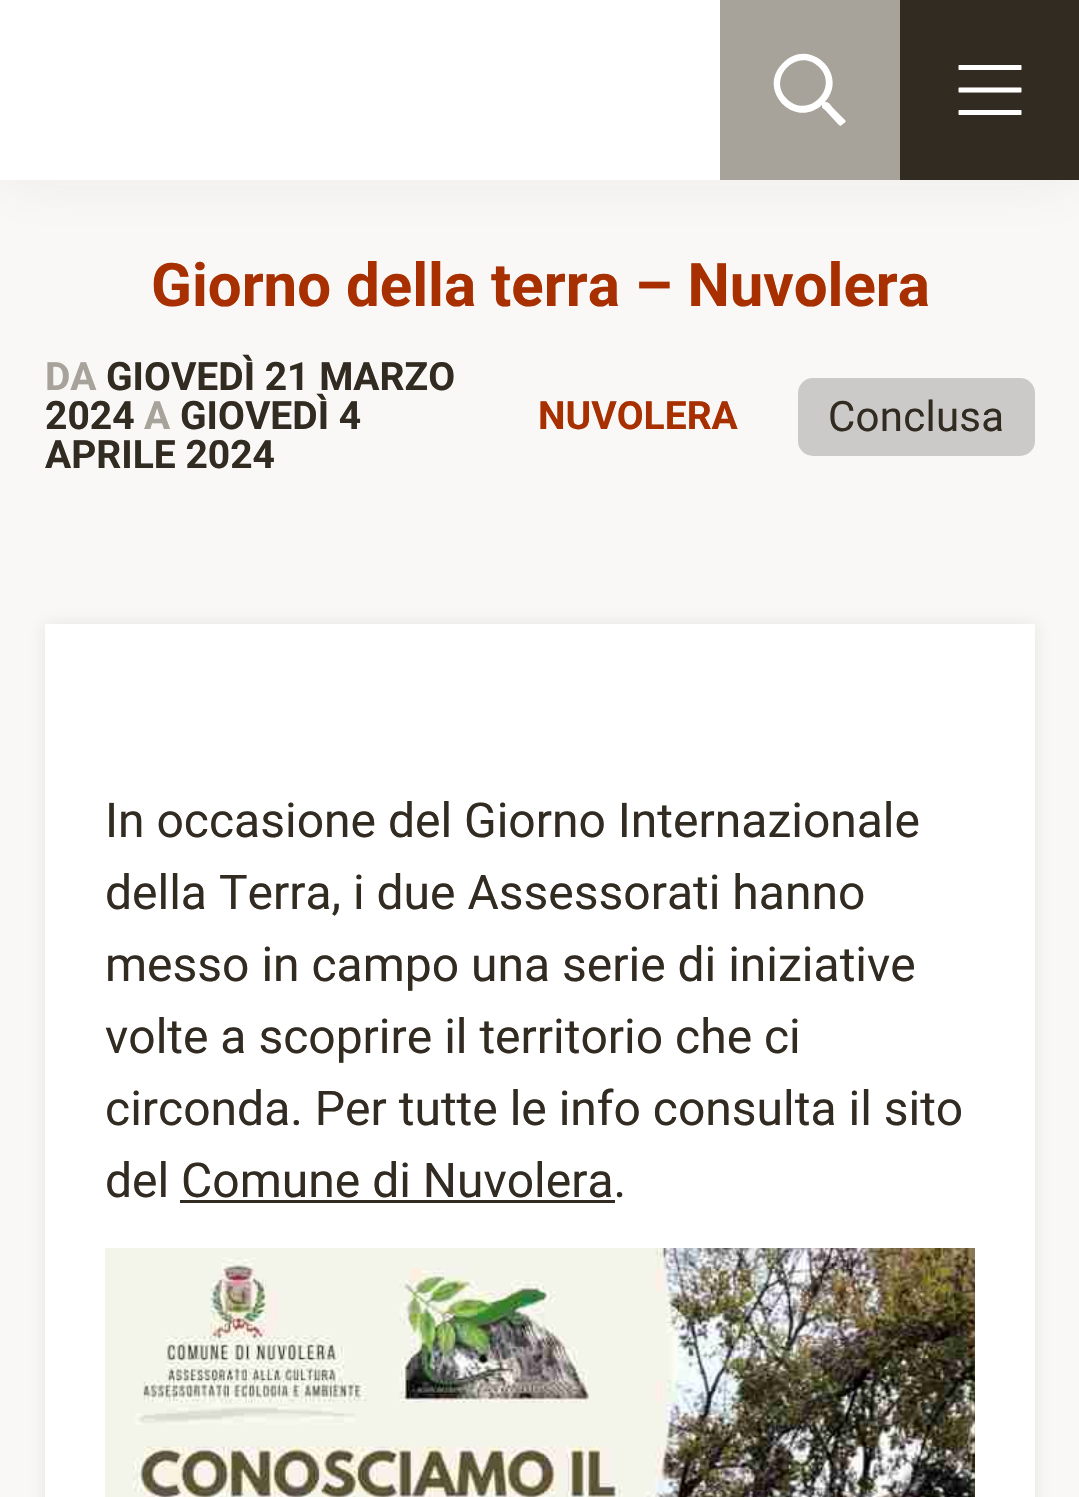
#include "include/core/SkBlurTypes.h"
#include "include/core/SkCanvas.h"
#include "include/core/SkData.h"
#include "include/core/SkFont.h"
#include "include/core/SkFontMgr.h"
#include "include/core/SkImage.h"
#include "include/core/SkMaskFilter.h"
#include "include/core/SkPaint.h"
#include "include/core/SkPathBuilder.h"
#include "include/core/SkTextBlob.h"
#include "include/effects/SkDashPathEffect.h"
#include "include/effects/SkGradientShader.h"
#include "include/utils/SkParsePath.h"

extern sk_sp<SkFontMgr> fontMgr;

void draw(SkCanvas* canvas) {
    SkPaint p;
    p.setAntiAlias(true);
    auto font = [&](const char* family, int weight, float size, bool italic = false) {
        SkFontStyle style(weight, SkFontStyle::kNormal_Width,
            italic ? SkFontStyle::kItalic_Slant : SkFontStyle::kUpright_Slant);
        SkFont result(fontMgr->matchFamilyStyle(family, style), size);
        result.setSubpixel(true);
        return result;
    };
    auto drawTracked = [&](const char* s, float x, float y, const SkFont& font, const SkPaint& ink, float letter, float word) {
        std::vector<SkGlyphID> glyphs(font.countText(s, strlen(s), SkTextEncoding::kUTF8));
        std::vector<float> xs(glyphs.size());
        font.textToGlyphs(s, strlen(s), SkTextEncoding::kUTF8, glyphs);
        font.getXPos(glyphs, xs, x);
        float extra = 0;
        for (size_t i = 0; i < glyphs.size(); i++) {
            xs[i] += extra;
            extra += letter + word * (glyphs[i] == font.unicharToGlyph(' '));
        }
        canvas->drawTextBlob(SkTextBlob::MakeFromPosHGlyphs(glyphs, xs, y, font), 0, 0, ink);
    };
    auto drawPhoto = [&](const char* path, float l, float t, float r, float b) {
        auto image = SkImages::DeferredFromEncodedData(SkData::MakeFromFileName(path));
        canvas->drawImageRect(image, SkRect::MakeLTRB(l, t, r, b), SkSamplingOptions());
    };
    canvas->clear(0xFFF9F8F6);
    p.setColor(0x0D322B22);
    p.setMaskFilter(SkMaskFilter::MakeBlur(kNormal_SkBlurStyle, 30));
    canvas->drawRect(SkRect::MakeLTRB(0, 6, 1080, 186), p);
    p.setMaskFilter(nullptr);
    p.setColor(0xFFFFFFFF);
    canvas->drawRect(SkRect::MakeLTRB(0, 0, 720, 180), p);
    p.setColor(0xFFA7A29A);
    canvas->drawRect(SkRect::MakeLTRB(720, 0, 900, 180), p);
    p.setColor(0xFFFFFFFF);
    canvas->drawPath(SkPathBuilder().moveTo(845, 120).cubicTo(847, 122, 844, 123, 843, 124).cubicTo(840, 127, 840, 126, 837, 123).lineTo(826, 111).cubicTo(823, 108, 822, 109, 822, 105).cubicTo(794, 130, 756, 89, 783, 63).cubicTo(809, 36, 850, 74, 825, 102).cubicTo(830, 102, 830, 105, 834, 109).close().moveTo(787, 99).cubicTo(808, 120, 840, 88, 819, 67).cubicTo(798, 46, 766, 78, 787, 99).close().detach(), p);
    p.setColor(0xFF322B22);
    canvas->drawRect(SkRect::MakeLTRB(900, 0, 1079, 180), p);
    drawPhoto("media/1.png", 958, 65, 1022, 115);
    auto font1 = font("Roboto", 700, 60);
    p.setColor(0xFFA82F00);
    canvas->drawString("Giorno della terra – Nuvolera", 151, 306, font1, p);
    auto font2 = font("Roboto", 700, 39);
    p.setColor(0xFFA7A29A);
    canvas->drawString("DA", 45, 390, font2, p);
    p.setColor(0xFF322B22);
    canvas->drawString("GIOVEDÌ 21 MARZO", 106, 390, font2, p);
    canvas->drawString("2024", 45, 429, font2, p);
    p.setColor(0xFFA7A29A);
    canvas->drawString("A", 144, 429, font2, p);
    p.setColor(0xFF322B22);
    canvas->drawString("GIOVEDÌ 4", 180, 429, font2, p);
    canvas->drawString("APRILE 2024", 45, 468, font2, p);
    p.setColor(0xFFA82F00);
    canvas->drawString("NUVOLERA", 538, 429, font2, p);
    p.setColor(0xFFCCCAC8);
    canvas->drawRoundRect(SkRect::MakeLTRB(798, 378, 1035, 456), 15, 15, p);
    auto font3 = font("Roboto", 400, 42);
    p.setColor(0xFF322B22);
    drawTracked("Conclusa", 828, 431, font3, p, 0.25f, 0);
    p.setColor(0x40A7A29A);
    p.setMaskFilter(SkMaskFilter::MakeBlur(kNormal_SkBlurStyle, 7.5f));
    canvas->drawRect(SkRect::MakeLTRB(45, 624, 1035, 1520), p);
    p.setMaskFilter(nullptr);
    p.setColor(0xFFFFFFFF);
    canvas->drawRect(SkRect::MakeLTRB(45, 624, 1035, 1497), p);
    auto font4 = font("Roboto", 400, 48);
    p.setColor(0xFF322B22);
    {
        const struct { const char* s; float x, y; } items[] = {
            {"In occasione del Giorno Internazionale", 105, 837},
            {"della Terra, i due Assessorati hanno", 105, 909},
            {"messo in campo una serie di iniziative", 105, 981},
            {"volte a scoprire il territorio che ci", 105, 1053},
            {"circonda. Per tutte le info consulta il sito", 105, 1125},
            {"del Comune di Nuvolera.", 105, 1197},
        };
        for (auto [s, x, y] : items) {
            canvas->drawString(s, x, y, font4, p);
        }
    }
    canvas->drawRect(SkRect::MakeLTRB(180, 1200, 615, 1203), p);
    drawPhoto("media/2.png", 105, 1248, 975, 1497);
}
